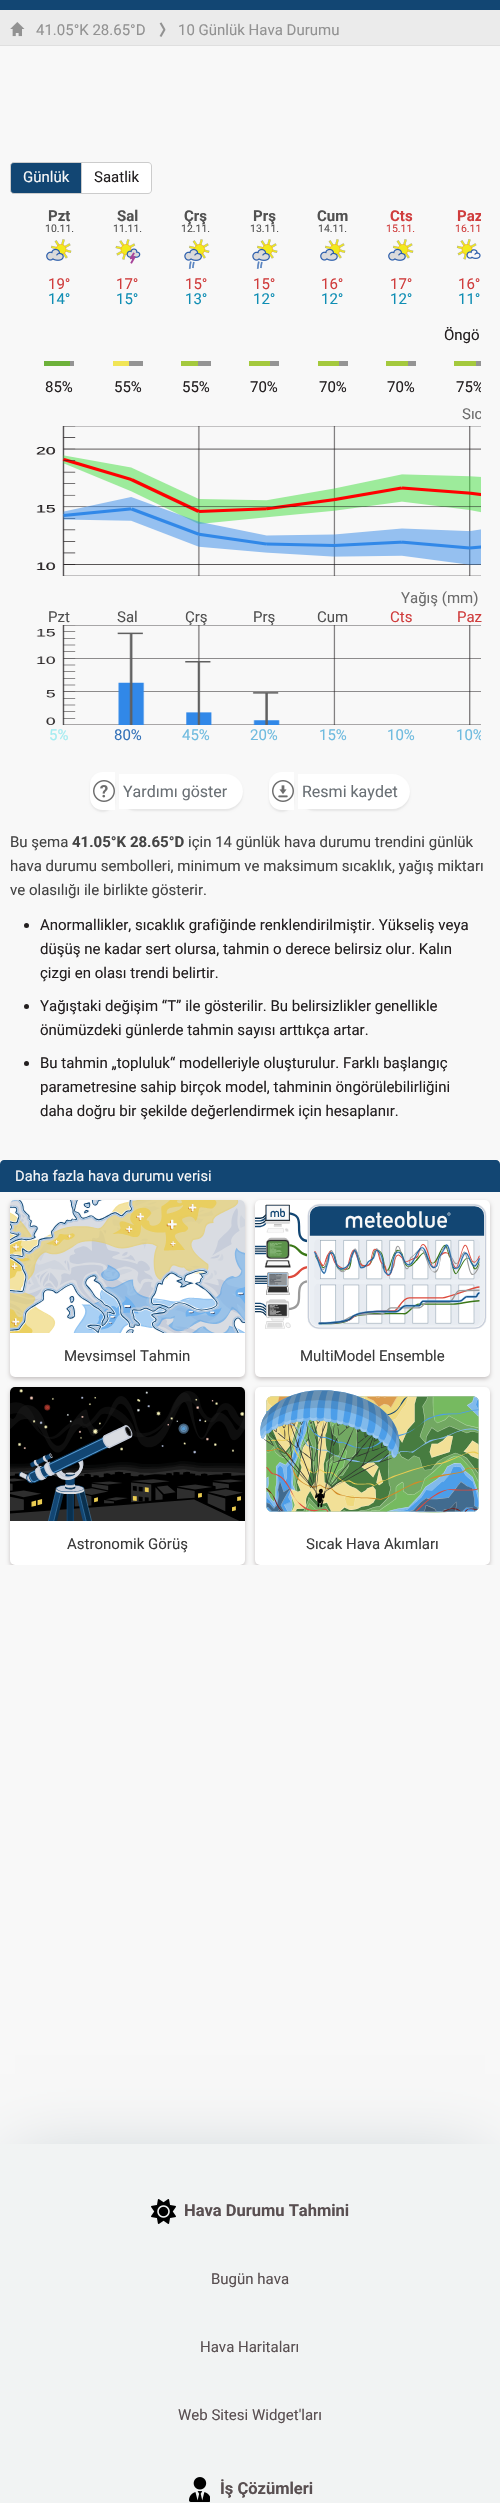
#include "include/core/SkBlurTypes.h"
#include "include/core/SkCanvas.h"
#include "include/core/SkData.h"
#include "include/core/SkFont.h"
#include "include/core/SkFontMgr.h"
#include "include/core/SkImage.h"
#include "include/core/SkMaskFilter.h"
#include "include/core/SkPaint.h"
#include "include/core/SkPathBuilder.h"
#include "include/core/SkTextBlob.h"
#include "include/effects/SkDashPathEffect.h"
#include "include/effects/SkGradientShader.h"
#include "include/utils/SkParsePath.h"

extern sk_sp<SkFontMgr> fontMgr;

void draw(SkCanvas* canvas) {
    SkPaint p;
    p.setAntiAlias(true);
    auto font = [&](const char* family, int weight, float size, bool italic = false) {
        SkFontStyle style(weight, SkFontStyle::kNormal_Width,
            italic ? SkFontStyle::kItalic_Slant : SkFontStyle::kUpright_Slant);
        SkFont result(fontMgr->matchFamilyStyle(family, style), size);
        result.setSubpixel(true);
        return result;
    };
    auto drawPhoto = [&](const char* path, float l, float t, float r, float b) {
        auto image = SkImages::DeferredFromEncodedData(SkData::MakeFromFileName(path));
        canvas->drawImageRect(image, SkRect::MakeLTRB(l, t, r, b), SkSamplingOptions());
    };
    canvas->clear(0xFFF8F8F8);
    {
        const struct { float l, t, r, b; SkColor color; } items[] = {
            {0, 0, 500, 10, 0xFF124673},
            {0, 10, 500, 45, 0xFFEBEBEB},
            {0, 45, 500, 46, 0xFFDFDFDF},
        };
        for (auto [l, t, r, b, color] : items) {
            p.setColor(color);
            canvas->drawRect(SkRect::MakeLTRB(l, t, r, b), p);
        }
    }
    drawPhoto("media/1.png", 10, 22, 25, 37);
    auto font1 = font("Roboto", 400, 15);
    p.setColor(0xFF929292);
    canvas->drawString("41.05°K 28.65°D", 36, 35, font1, p);
    drawPhoto("media/2.png", 159, 22, 166, 37);
    canvas->drawString("10 Günlük Hava Durumu", 178, 35, font1, p);
    p.setColor(0xFF124673);
    canvas->drawPath(SkPathBuilder().moveTo(14, 162.5f).lineTo(81.5f, 162.5f).lineTo(81.5f, 193.5f).lineTo(14, 193.5f).cubicTo(12, 193.5f, 10.5f, 192, 10.5f, 190).lineTo(10.5f, 166).cubicTo(10.5f, 164, 12, 162.5f, 14, 162.5f).close().detach(), p);
    p.setStyle(SkPaint::kStroke_Style);
    p.setStrokeWidth(1);
    p.setColor(0xFFCCCCCC);
    canvas->drawPath(SkPathBuilder().moveTo(14, 162.5f).lineTo(81.5f, 162.5f).lineTo(81.5f, 193.5f).lineTo(14, 193.5f).cubicTo(12, 193.5f, 10.5f, 192, 10.5f, 190).lineTo(10.5f, 166).cubicTo(10.5f, 164, 12, 162.5f, 14, 162.5f).close().detach(), p);
    p.setStyle(SkPaint::kFill_Style);
    p.setColor(0xFFF8F8F8);
    canvas->drawString("Günlük", 23, 182, font1, p);
    p.setColor(0xFFFFFFFF);
    canvas->drawPath(SkPathBuilder().moveTo(82, 162).lineTo(148, 162).cubicTo(150, 162, 152, 164, 152, 166).lineTo(152, 190).cubicTo(152, 192, 150, 194, 148, 194).lineTo(82, 194).close().detach(), p);
    p.setColor(0xFFCCCCCC);
    canvas->drawPath(SkPathBuilder(SkPathFillType::kEvenOdd).moveTo(82, 162).lineTo(148, 162).cubicTo(150, 162, 152, 164, 152, 166).lineTo(152, 190).cubicTo(152, 192, 150, 194, 148, 194).lineTo(82, 194).close().moveTo(82, 163).lineTo(148, 163).cubicTo(150, 163, 151, 164, 151, 166).lineTo(151, 190).cubicTo(151, 192, 150, 193, 148, 193).lineTo(82, 193).close().detach(), p);
    p.setColor(0xFF231F20);
    canvas->drawString("Saatlik", 94, 182, font1, p);
    auto font2 = font("Roboto", 700, 15);
    p.setColor(0xFF515151);
    {
        const struct { const char* s; float x, y; } items[] = {
            {"Pzt", 48, 221},
            {"Sal", 117, 221},
            {"Çrş", 184, 221},
            {"Prş", 253, 221},
            {"Cum", 317, 221},
        };
        for (auto [s, x, y] : items) {
            canvas->drawString(s, x, y, font2, p);
        }
    }
    p.setColor(0xFFD03D3D);
    canvas->drawString("Cts", 390, 221, font2, p);
    canvas->save();
    canvas->clipRect(SkRect::MakeLTRB(25, 209, 481, 743));
    canvas->drawString("Paz", 457, 221, font2, p);
    canvas->restore();
    auto font3 = font("Roboto", 400, 10.5f);
    p.setColor(0xFF515151);
    {
        const struct { const char* s; float x, y; } items[] = {
            {"10.11.", 45, 232},
            {"11.11.", 113, 232},
            {"12.11.", 181, 232},
            {"13.11.", 250, 232},
            {"14.11.", 318, 232},
        };
        for (auto [s, x, y] : items) {
            canvas->drawString(s, x, y, font3, p);
        }
    }
    p.setColor(0xFFD03D3D);
    canvas->drawString("15.11.", 386, 232, font3, p);
    canvas->drawString("16.11", 455, 232, font3, p);
    drawPhoto("media/3.png", 46, 239, 72, 261);
    drawPhoto("media/4.png", 115, 239, 141, 264);
    drawPhoto("media/5.png", 184, 239, 210, 269);
    drawPhoto("media/5.png", 252, 239, 278, 269);
    drawPhoto("media/3.png", 320, 239, 346, 261);
    drawPhoto("media/3.png", 388, 239, 414, 261);
    drawPhoto("media/6.png", 456, 239, 481, 260);
    {
        const struct { const char* s; float x, y; } items[] = {
            {"19°", 48, 289},
            {"17°", 116, 289},
            {"15°", 185, 289},
            {"15°", 253, 289},
            {"16°", 321, 289},
            {"17°", 390, 289},
            {"16°", 458, 289},
        };
        for (auto [s, x, y] : items) {
            canvas->drawString(s, x, y, font1, p);
        }
    }
    p.setColor(0xFF0F8EB4);
    {
        const struct { const char* s; float x, y; } items[] = {
            {"14°", 48, 304},
            {"15°", 116, 304},
            {"13°", 185, 304},
            {"12°", 253, 304},
            {"12°", 321, 304},
            {"12°", 390, 304},
            {"11°", 458, 304},
        };
        for (auto [s, x, y] : items) {
            canvas->drawString(s, x, y, font1, p);
        }
    }
    p.setColor(0xFF231F20);
    canvas->drawString("Öngö", 444, 340, font1, p);
    {
        const struct { float l, t, r, b; SkColor color; } items[] = {
            {44, 361, 70, 366, 0xFF6DB13A},
            {70, 361, 74, 366, 0xFF949494},
            {113, 361, 129, 366, 0xFFF1E556},
            {129, 361, 143, 366, 0xFF949494},
            {181, 361, 198, 366, 0xFFA4C93D},
            {198, 361, 211, 366, 0xFF949494},
            {249, 361, 270, 366, 0xFFA4C93D},
            {270, 361, 279, 366, 0xFF949494},
            {318, 361, 339, 366, 0xFFA4C93D},
            {339, 361, 348, 366, 0xFF949494},
            {386, 361, 408, 366, 0xFFA4C93D},
            {408, 361, 416, 366, 0xFF949494},
            {454, 361, 476, 366, 0xFFA4C93D},
            {476, 361, 481, 366, 0xFF949494},
        };
        for (auto [l, t, r, b, color] : items) {
            p.setColor(color);
            canvas->drawRect(SkRect::MakeLTRB(l, t, r, b), p);
        }
    }
    p.setColor(0xFF231F20);
    {
        const struct { const char* s; float x, y; } items[] = {
            {"85%", 45, 392},
            {"55%", 114, 392},
            {"55%", 182, 392},
            {"70%", 250, 392},
            {"70%", 319, 392},
            {"70%", 387, 392},
        };
        for (auto [s, x, y] : items) {
            canvas->drawString(s, x, y, font1, p);
        }
    }
    canvas->save();
    canvas->clipRect(SkRect::MakeLTRB(25, 209, 481, 743));
    canvas->drawString("75%", 456, 392, font1, p);
    p.setColor(0xFF6C6C6C);
    canvas->drawString("Sıc", 462, 419, font1, p);
    canvas->restore();
    drawPhoto("media/7.png", 36, 426, 481, 576);
    canvas->drawString("Yağış (mm)", 401, 603, font1, p);
    p.setColor(0xFF515151);
    {
        const struct { const char* s; float x, y; } items[] = {
            {"Pzt", 48, 622},
            {"Sal", 117, 622},
            {"Çrş", 185, 622},
            {"Prş", 253, 622},
            {"Cum", 317, 622},
        };
        for (auto [s, x, y] : items) {
            canvas->drawString(s, x, y, font1, p);
        }
    }
    p.setColor(0xFFD03D3D);
    canvas->drawString("Cts", 390, 622, font1, p);
    canvas->drawString("Paz", 457, 622, font1, p);
    drawPhoto("media/8.png", 36, 625, 481, 725);
    p.setColor(0xFFA5ECF1);
    canvas->drawString("5%", 49, 740, font1, p);
    p.setColor(0xFF3472B9);
    canvas->drawString("80%", 114, 740, font1, p);
    p.setColor(0xFF6FBBDF);
    {
        const struct { const char* s; float x, y; } items[] = {
            {"45%", 182, 740},
            {"20%", 250, 740},
            {"15%", 319, 740},
            {"10%", 387, 740},
        };
        for (auto [s, x, y] : items) {
            canvas->drawString(s, x, y, font1, p);
        }
    }
    canvas->save();
    canvas->clipRect(SkRect::MakeLTRB(25, 209, 481, 743));
    canvas->drawString("10%", 456, 740, font1, p);
    canvas->restore();
    p.setColor(0xFFE6E6E6);
    p.setMaskFilter(SkMaskFilter::MakeBlur(kNormal_SkBlurStyle, 1));
    canvas->drawRoundRect(SkRect::MakeLTRB(90, 774, 115, 812), 12.5f, 12.5f, p);
    p.setMaskFilter(nullptr);
    p.setColor(0xFFFFFFFF);
    canvas->drawPath(SkPathBuilder().moveTo(102.5f, 772).lineTo(115, 772).lineTo(115, 810).lineTo(102.5f, 810).cubicTo(95.5f, 810, 90, 804.5f, 90, 797.5f).lineTo(90, 784.5f).cubicTo(90, 777.5f, 95.5f, 772, 102.5f, 772).close().detach(), p);
    p.setColor(0xFFE6E6E6);
    p.setMaskFilter(SkMaskFilter::MakeBlur(kNormal_SkBlurStyle, 1));
    canvas->drawRoundRect(SkRect::MakeLTRB(119, 776, 243, 811), 17.5f, 17.5f, p);
    p.setMaskFilter(nullptr);
    p.setColor(0xFFFFFFFF);
    canvas->drawPath(SkPathBuilder().moveTo(119, 774).lineTo(225.5f, 774).cubicTo(235, 774, 243, 782, 243, 791.5f).cubicTo(243, 801, 235, 809, 225.5f, 809).lineTo(119, 809).close().detach(), p);
    drawPhoto("media/9.png", 93, 780, 115, 802);
    auto font4 = font("Roboto", 400, 16);
    p.setColor(0xFF6A7075);
    canvas->drawString("Yardımı göster", 123, 797, font4, p);
    p.setColor(0xFFE6E6E6);
    p.setMaskFilter(SkMaskFilter::MakeBlur(kNormal_SkBlurStyle, 1));
    canvas->drawRoundRect(SkRect::MakeLTRB(269, 774, 294, 812), 12.5f, 12.5f, p);
    p.setMaskFilter(nullptr);
    p.setColor(0xFFFFFFFF);
    canvas->drawPath(SkPathBuilder().moveTo(281.5f, 772).lineTo(294, 772).lineTo(294, 810).lineTo(281.5f, 810).cubicTo(274.5f, 810, 269, 804.5f, 269, 797.5f).lineTo(269, 784.5f).cubicTo(269, 777.5f, 274.5f, 772, 281.5f, 772).close().detach(), p);
    p.setColor(0xFFE6E6E6);
    p.setMaskFilter(SkMaskFilter::MakeBlur(kNormal_SkBlurStyle, 1));
    canvas->drawRoundRect(SkRect::MakeLTRB(298, 776, 410, 811), 17.5f, 17.5f, p);
    p.setMaskFilter(nullptr);
    p.setColor(0xFFFFFFFF);
    canvas->drawPath(SkPathBuilder().moveTo(298, 774).lineTo(392.5f, 774).cubicTo(402, 774, 410, 782, 410, 791.5f).cubicTo(410, 801, 402, 809, 392.5f, 809).lineTo(298, 809).close().detach(), p);
    drawPhoto("media/10.png", 272, 780, 294, 802);
    p.setColor(0xFF6A7075);
    canvas->drawString("Resmi kaydet", 302, 797, font4, p);
    p.setColor(0xFF444444);
    canvas->drawString("Bu şema", 10, 847, font1, p);
    canvas->drawString("41.05°K 28.65°D", 72, 847, font2, p);
    {
        const struct { const char* s; float x, y; } items[] = {
            {"için 14 günlük hava durumu trendini günlük", 188, 847},
            {"hava durumu sembolleri, minimum ve maksimum sıcaklık, yağış miktarı", 10, 871},
            {"ve olasılığı ile birlikte gösterir.", 10, 895},
        };
        for (auto [s, x, y] : items) {
            canvas->drawString(s, x, y, font1, p);
        }
    }
    p.setColor(0xFF231F20);
    canvas->drawCircle(26.5f, 925.5f, 2.5f, p);
    {
        const struct { const char* s; float x, y; } items[] = {
            {"Anormallikler, sıcaklık grafiğinde renklendirilmiştir. Yükseliş veya", 40, 930},
            {"düşüş ne kadar sert olursa, tahmin o derece belirsiz olur. Kalın", 40, 954},
            {"çizgi en olası trendi belirtir.", 40, 978},
        };
        for (auto [s, x, y] : items) {
            canvas->drawString(s, x, y, font1, p);
        }
    }
    canvas->drawCircle(26.5f, 1006.5f, 2.5f, p);
    canvas->drawString("Yağıştaki değişim “T” ile gösterilir. Bu belirsizlikler genellikle", 40, 1011, font1, p);
    canvas->drawString("önümüzdeki günlerde tahmin sayısı arttıkça artar.", 40, 1035, font1, p);
    canvas->drawCircle(26.5f, 1063.5f, 2.5f, p);
    {
        const struct { const char* s; float x, y; } items[] = {
            {"Bu tahmin „topluluk“ modelleriyle oluşturulur. Farklı başlangıç", 40, 1068},
            {"parametresine sahip birçok model, tahminin öngörülebilirliğini", 40, 1092},
            {"daha doğru bir şekilde değerlendirmek için hesaplanır.", 40, 1116},
        };
        for (auto [s, x, y] : items) {
            canvas->drawString(s, x, y, font1, p);
        }
    }
    p.setColor(0xFF124673);
    canvas->drawPath(SkPathBuilder().moveTo(4, 1160).lineTo(496, 1160).cubicTo(498, 1160, 500, 1162, 500, 1164).lineTo(500, 1192).lineTo(0, 1192).lineTo(0, 1164).cubicTo(0, 1162, 2, 1160, 4, 1160).close().detach(), p);
    auto font5 = font("Roboto", 400, 14.7f);
    p.setColor(0xFFF8F8F8);
    canvas->drawString("Daha fazla hava durumu verisi", 15, 1181, font5, p);
    p.setColor(0xFFC5C0C0);
    p.setMaskFilter(SkMaskFilter::MakeBlur(kNormal_SkBlurStyle, 2));
    canvas->drawRoundRect(SkRect::MakeLTRB(10, 1202, 245, 1379), 5, 5, p);
    p.setMaskFilter(nullptr);
    p.setColor(0xFFFFFFFF);
    canvas->drawRoundRect(SkRect::MakeLTRB(10, 1200, 245, 1377), 5, 5, p);
    drawPhoto("media/11.png", 10, 1200, 245, 1333);
    p.setColor(0xFF3A3A3A);
    canvas->drawString("Mevsimsel Tahmin", 64, 1361, font1, p);
    p.setColor(0xFFC5C0C0);
    p.setMaskFilter(SkMaskFilter::MakeBlur(kNormal_SkBlurStyle, 2));
    canvas->drawRoundRect(SkRect::MakeLTRB(255, 1202, 490, 1379), 5, 5, p);
    p.setMaskFilter(nullptr);
    p.setColor(0xFFFFFFFF);
    canvas->drawRoundRect(SkRect::MakeLTRB(255, 1200, 490, 1377), 5, 5, p);
    drawPhoto("media/12.png", 255, 1203, 487, 1330);
    p.setColor(0xFF3A3A3A);
    canvas->drawString("MultiModel Ensemble", 300, 1361, font1, p);
    canvas->save();
    canvas->clipRect(SkRect::MakeLTRB(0, 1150, 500, 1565));
    p.setColor(0xFFC5C0C0);
    p.setMaskFilter(SkMaskFilter::MakeBlur(kNormal_SkBlurStyle, 2));
    canvas->drawRoundRect(SkRect::MakeLTRB(10, 1389, 245, 1567), 5, 5, p);
    p.setMaskFilter(nullptr);
    canvas->restore();
    p.setColor(0xFFFFFFFF);
    canvas->drawRoundRect(SkRect::MakeLTRB(10, 1387, 245, 1565), 5, 5, p);
    drawPhoto("media/13.png", 10, 1387, 245, 1521);
    p.setColor(0xFF3A3A3A);
    canvas->drawString("Astronomik Görüş", 67, 1549, font1, p);
    canvas->save();
    canvas->clipRect(SkRect::MakeLTRB(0, 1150, 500, 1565));
    p.setColor(0xFFC5C0C0);
    p.setMaskFilter(SkMaskFilter::MakeBlur(kNormal_SkBlurStyle, 2));
    canvas->drawRoundRect(SkRect::MakeLTRB(255, 1389, 490, 1567), 5, 5, p);
    p.setMaskFilter(nullptr);
    canvas->restore();
    p.setColor(0xFFFFFFFF);
    canvas->drawRoundRect(SkRect::MakeLTRB(255, 1387, 490, 1565), 5, 5, p);
    drawPhoto("media/14.png", 260, 1390, 479, 1513);
    p.setColor(0xFF3A3A3A);
    canvas->drawString("Sıcak Hava Akımları", 306, 1549, font1, p);
    p.setColor(0xFFC4CDD1);
    p.setMaskFilter(SkMaskFilter::MakeBlur(kNormal_SkBlurStyle, 35));
    canvas->drawRect(SkRect::MakeLTRB(15, 2159, 485, 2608), p);
    p.setMaskFilter(nullptr);
    p.setColor(0xFFF1F3F3);
    canvas->drawRect(SkRect::MakeLTRB(0, 2144, 500, 2503), p);
    drawPhoto("media/15.png", 151, 2199, 176, 2224);
    auto font6 = font("Roboto", 700, 16.5f);
    p.setColor(0xFF594F51);
    canvas->drawString("Hava Durumu Tahmini", 184, 2216, font6, p);
    {
        const struct { const char* s; float x, y; } items[] = {
            {"Bugün hava", 211, 2284},
            {"Hava Haritaları", 200, 2352},
            {"Web Sitesi Widget'ları", 178, 2420},
        };
        for (auto [s, x, y] : items) {
            canvas->drawString(s, x, y, font1, p);
        }
    }
    drawPhoto("media/16.png", 189, 2477, 210, 2502);
    canvas->drawString("İş Çözümleri", 220, 2494, font6, p);
}
